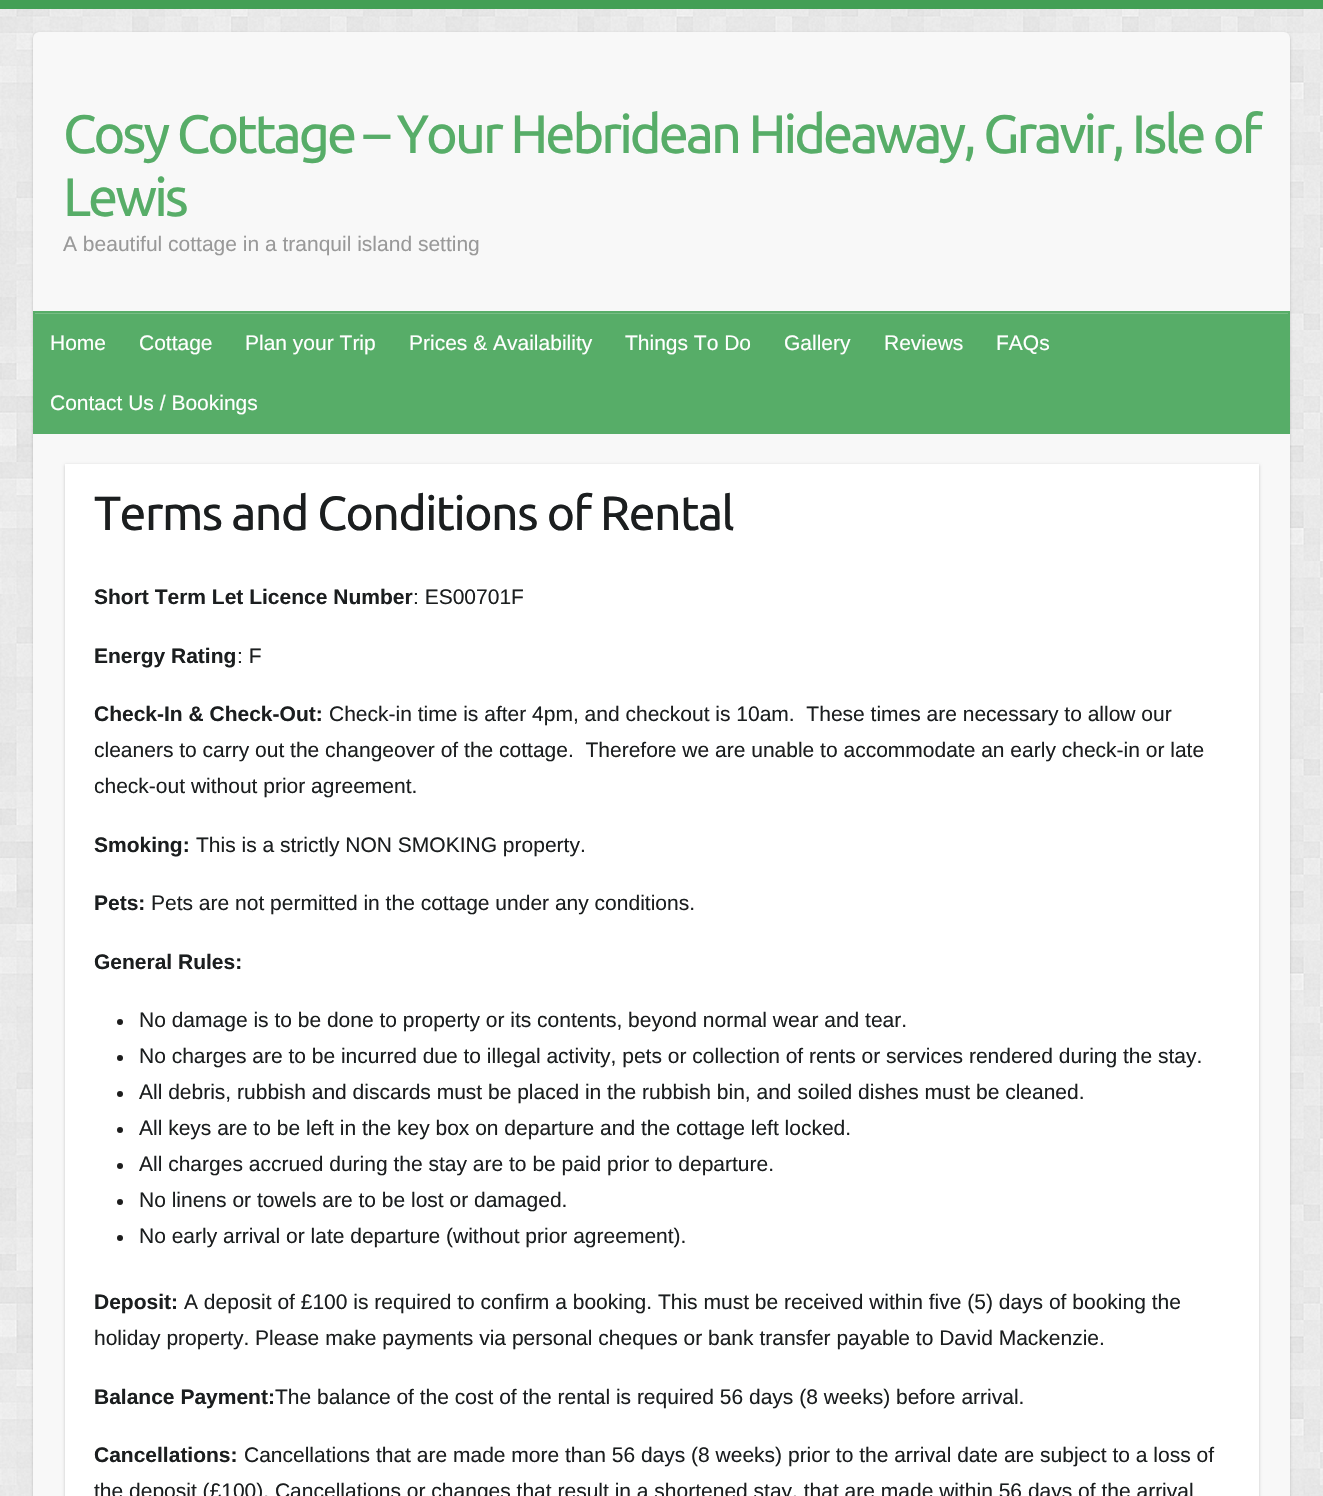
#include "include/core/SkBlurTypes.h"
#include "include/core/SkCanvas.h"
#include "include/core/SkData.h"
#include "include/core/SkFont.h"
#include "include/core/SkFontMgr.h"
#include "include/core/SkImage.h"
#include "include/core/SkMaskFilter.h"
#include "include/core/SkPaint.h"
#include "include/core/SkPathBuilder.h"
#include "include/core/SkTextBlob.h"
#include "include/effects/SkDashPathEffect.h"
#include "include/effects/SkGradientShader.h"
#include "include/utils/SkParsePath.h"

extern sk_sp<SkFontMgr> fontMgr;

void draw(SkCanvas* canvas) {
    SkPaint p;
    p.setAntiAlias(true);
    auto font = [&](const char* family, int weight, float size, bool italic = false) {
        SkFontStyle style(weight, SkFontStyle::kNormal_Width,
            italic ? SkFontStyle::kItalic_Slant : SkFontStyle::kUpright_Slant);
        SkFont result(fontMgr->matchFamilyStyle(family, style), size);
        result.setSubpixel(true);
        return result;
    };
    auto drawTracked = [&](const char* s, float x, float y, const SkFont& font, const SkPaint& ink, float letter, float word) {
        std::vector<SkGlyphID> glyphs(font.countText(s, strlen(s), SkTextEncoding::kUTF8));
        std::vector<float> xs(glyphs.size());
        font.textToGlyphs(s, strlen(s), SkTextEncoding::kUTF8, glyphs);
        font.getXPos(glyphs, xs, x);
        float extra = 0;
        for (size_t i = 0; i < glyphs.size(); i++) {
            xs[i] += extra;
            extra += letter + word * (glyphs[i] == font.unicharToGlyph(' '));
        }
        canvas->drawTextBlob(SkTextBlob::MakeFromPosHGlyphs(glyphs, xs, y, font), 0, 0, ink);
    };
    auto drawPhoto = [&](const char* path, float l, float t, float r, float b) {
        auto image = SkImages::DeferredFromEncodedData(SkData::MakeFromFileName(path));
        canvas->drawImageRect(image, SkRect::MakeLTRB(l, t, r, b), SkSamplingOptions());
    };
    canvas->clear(0xFFFFFFFF);
    drawPhoto("media/1.png", 0, 9, 1323, 1496);
    p.setColor(0xFF439F55);
    canvas->drawRect(SkRect::MakeLTRB(0, 0, 1323, 9), p);
    p.setColor(0x33000000);
    p.setMaskFilter(SkMaskFilter::MakeBlur(kNormal_SkBlurStyle, 1.5f));
    canvas->drawRoundRect(SkRect::MakeLTRB(33, 33, 1290, 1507), 6, 6, p);
    p.setMaskFilter(nullptr);
    p.setColor(0xFFF8F8F8);
    canvas->drawRoundRect(SkRect::MakeLTRB(33, 32, 1290, 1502), 6, 6, p);
    auto font1 = font("Ubuntu", 400, 54);
    p.setColor(0xFF57AD68);
    drawTracked("Cosy Cottage – Your Hebridean Hideaway, Gravir, Isle of", 63, 153, font1, p, -3, 0);
    drawTracked("Lewis", 63, 216, font1, p, -3, 0);
    auto font2 = font("Liberation Sans", 400, 21);
    p.setColor(0xFF999999);
    canvas->drawString("A beautiful cottage in a tranquil island setting", 63, 251, font2, p);
    p.setColor(0xFF57AD68);
    canvas->drawRect(SkRect::MakeLTRB(35, 314, 1288, 432), p);
    p.setColor(0xFF79BD86);
    canvas->drawRect(SkRect::MakeLTRB(35, 313, 1289, 314), p);
    p.setStyle(SkPaint::kStroke_Style);
    p.setStrokeWidth(2);
    p.setColor(0xFF57AD68);
    canvas->drawRect(SkRect::MakeLTRB(34, 312, 1289, 433), p);
    p.setStyle(SkPaint::kFill_Style);
    p.setColor(0xFFFFFFFF);
    {
        const struct { const char* s; float x, y; } items[] = {
            {"Home", 50, 350},
            {"Cottage", 139, 350},
            {"Plan your Trip", 245, 350},
            {"Prices & Availability", 409, 350},
            {"Things To Do", 625, 350},
            {"Gallery", 784, 350},
            {"Reviews", 884, 350},
            {"FAQs", 996, 350},
            {"Contact Us / Bookings", 50, 410},
        };
        for (auto [s, x, y] : items) {
            canvas->drawString(s, x, y, font2, p);
        }
    }
    p.setColor(0x33000000);
    p.setMaskFilter(SkMaskFilter::MakeBlur(kNormal_SkBlurStyle, 1.5f));
    canvas->drawRect(SkRect::MakeLTRB(65, 465, 1259, 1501), p);
    p.setMaskFilter(nullptr);
    p.setColor(0xFFFFFFFF);
    canvas->drawRect(SkRect::MakeLTRB(65, 464, 1259, 1496), p);
    auto font3 = font("Ubuntu", 400, 48);
    p.setColor(0xFF1B1E1F);
    drawTracked("Terms and Conditions of Rental", 94, 530, font3, p, -1.5f, 0);
    auto font4 = font("Liberation Sans", 700, 21);
    canvas->drawString("Short Term Let Licence Number", 94, 604, font4, p);
    canvas->drawString(": ES00701F", 413, 604, font2, p);
    canvas->drawString("Energy Rating", 94, 663, font4, p);
    canvas->drawString(": F", 237, 663, font2, p);
    canvas->drawString("Check-In & Check-Out:", 94, 721, font4, p);
    {
        const struct { const char* s; float x, y; } items[] = {
            {"Check-in time is after 4pm, and checkout is 10am.  These times are necessary to allow our", 329, 721},
            {"cleaners to carry out the changeover of the cottage.  Therefore we are unable to accommodate an early check-in or late", 94, 757},
            {"check-out without prior agreement.", 94, 793},
        };
        for (auto [s, x, y] : items) {
            canvas->drawString(s, x, y, font2, p);
        }
    }
    canvas->drawString("Smoking:", 94, 852, font4, p);
    canvas->drawString("This is a strictly NON SMOKING property.", 196, 852, font2, p);
    canvas->drawString("Pets:", 94, 910, font4, p);
    canvas->drawString("Pets are not permitted in the cottage under any conditions.", 151, 910, font2, p);
    canvas->drawString("General Rules:", 94, 969, font4, p);
    p.setColor(0xFF1D1D1D);
    canvas->drawCircle(120, 1022, 3, p);
    p.setColor(0xFF1B1E1F);
    canvas->drawString("No damage is to be done to property or its contents, beyond normal wear and tear.", 139, 1027, font2, p);
    p.setColor(0xFF1D1D1D);
    canvas->drawCircle(120, 1058, 3, p);
    p.setColor(0xFF1B1E1F);
    canvas->drawString("No charges are to be incurred due to illegal activity, pets or collection of rents or services rendered during the stay.", 139, 1063, font2, p);
    p.setColor(0xFF1D1D1D);
    canvas->drawCircle(120, 1094, 3, p);
    p.setColor(0xFF1B1E1F);
    canvas->drawString("All debris, rubbish and discards must be placed in the rubbish bin, and soiled dishes must be cleaned.", 139, 1099, font2, p);
    p.setColor(0xFF1D1D1D);
    canvas->drawCircle(120, 1130, 3, p);
    p.setColor(0xFF1B1E1F);
    canvas->drawString("All keys are to be left in the key box on departure and the cottage left locked.", 139, 1135, font2, p);
    p.setColor(0xFF1D1D1D);
    canvas->drawCircle(120, 1166, 3, p);
    p.setColor(0xFF1B1E1F);
    canvas->drawString("All charges accrued during the stay are to be paid prior to departure.", 139, 1171, font2, p);
    p.setColor(0xFF1D1D1D);
    canvas->drawCircle(120, 1202, 3, p);
    p.setColor(0xFF1B1E1F);
    canvas->drawString("No linens or towels are to be lost or damaged.", 139, 1207, font2, p);
    p.setColor(0xFF1D1D1D);
    canvas->drawCircle(120, 1238, 3, p);
    p.setColor(0xFF1B1E1F);
    canvas->drawString("No early arrival or late departure (without prior agreement).", 139, 1243, font2, p);
    canvas->drawString("Deposit:", 94, 1309, font4, p);
    canvas->drawString("A deposit of £100 is required to confirm a booking. This must be received within five (5) days of booking the", 184, 1309, font2, p);
    canvas->drawString("holiday property. Please make payments via personal cheques or bank transfer payable to David Mackenzie.", 94, 1345, font2, p);
    canvas->drawString("Balance Payment:", 94, 1404, font4, p);
    canvas->drawString("The balance of the cost of the rental is required 56 days (8 weeks) before arrival.", 275, 1404, font2, p);
    canvas->drawString("Cancellations:", 94, 1462, font4, p);
    canvas->drawString("Cancellations that are made more than 56 days (8 weeks) prior to the arrival date are subject to a loss of", 244, 1462, font2, p);
    canvas->drawString("the deposit (£100). Cancellations or changes that result in a shortened stay, that are made within 56 days of the arrival", 94, 1498, font2, p);
}
